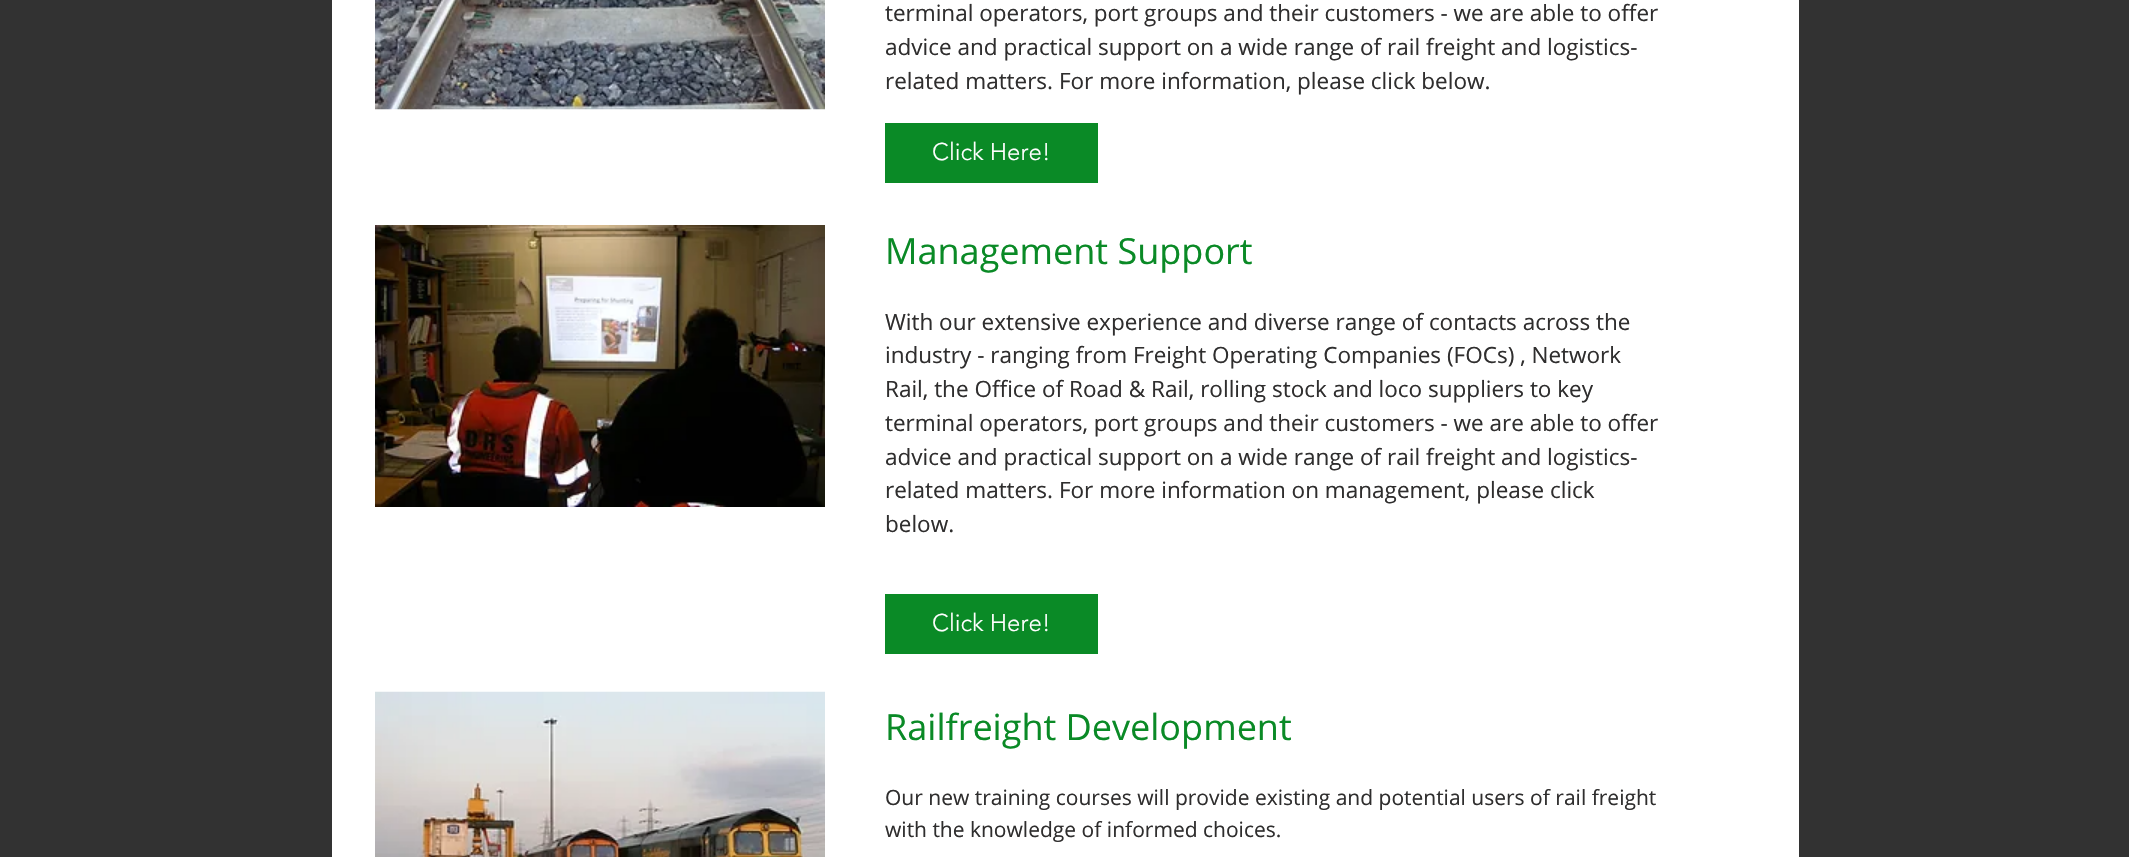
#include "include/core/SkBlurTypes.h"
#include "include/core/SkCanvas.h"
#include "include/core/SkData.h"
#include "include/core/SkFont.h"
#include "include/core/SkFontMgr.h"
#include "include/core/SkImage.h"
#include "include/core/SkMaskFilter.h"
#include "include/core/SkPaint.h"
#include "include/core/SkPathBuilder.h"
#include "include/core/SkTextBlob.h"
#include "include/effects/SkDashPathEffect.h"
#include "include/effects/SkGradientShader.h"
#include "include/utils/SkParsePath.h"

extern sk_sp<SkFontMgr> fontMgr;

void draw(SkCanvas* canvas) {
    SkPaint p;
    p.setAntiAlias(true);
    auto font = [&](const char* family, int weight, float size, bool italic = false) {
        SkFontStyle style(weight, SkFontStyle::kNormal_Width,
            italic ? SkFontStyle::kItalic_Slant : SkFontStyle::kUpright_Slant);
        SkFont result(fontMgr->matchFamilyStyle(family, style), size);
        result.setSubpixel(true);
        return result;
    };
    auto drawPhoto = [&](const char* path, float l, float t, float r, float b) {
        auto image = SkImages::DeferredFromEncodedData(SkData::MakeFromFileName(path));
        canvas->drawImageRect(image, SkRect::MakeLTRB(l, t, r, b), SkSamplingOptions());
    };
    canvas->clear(0xFFFFFFFF);
    p.setColor(0xFF323232);
    canvas->drawRect(SkRect::MakeLTRB(0, 0, 332, 857), p);
    drawPhoto("media/1.png", 375, 0, 825, 110);
    auto font1 = font("Open Sans", 400, 22.5f);
    p.setColor(0xFF2F2E2E);
    {
        const struct { const char* s; float x, y; } items[] = {
            {"terminal operators, port groups and their customers - we are able to offer", 885, 21},
            {"advice and practical support on a wide range of rail freight and logistics-", 885, 55},
            {"related matters. For more information, please click below.", 885, 89},
        };
        for (auto [s, x, y] : items) {
            canvas->drawString(s, x, y, font1, p);
        }
    }
    p.setColor(0xFF323232);
    canvas->drawRect(SkRect::MakeLTRB(1799, 0, 2129, 857), p);
    p.setColor(0xFF0A8A26);
    canvas->drawRect(SkRect::MakeLTRB(885, 123, 1098, 183), p);
    auto font2 = font("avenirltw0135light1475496", 300, 24);
    p.setColor(0xFFFFFFFF);
    canvas->drawString("Click Here!", 932, 160, font2, p);
    drawPhoto("media/2.png", 375, 225, 825, 507);
    auto font3 = font("Open Sans", 400, 36);
    p.setColor(0xFF0A8A26);
    canvas->drawString("Management Support", 885, 264, font3, p);
    p.setColor(0xFF2F2E2E);
    {
        const struct { const char* s; float x, y; } items[] = {
            {"With our extensive experience and diverse range of contacts across the", 885, 330},
            {"industry - ranging from Freight Operating Companies (FOCs) , Network", 885, 363},
            {"Rail, the Office of Road & Rail, rolling stock and loco suppliers to key", 885, 397},
            {"terminal operators, port groups and their customers - we are able to offer", 885, 431},
            {"advice and practical support on a wide range of rail freight and logistics-", 885, 465},
            {"related matters. For more information on management, please click", 885, 498},
            {"below.", 885, 532},
        };
        for (auto [s, x, y] : items) {
            canvas->drawString(s, x, y, font1, p);
        }
    }
    p.setColor(0xFF0A8A26);
    canvas->drawRect(SkRect::MakeLTRB(885, 594, 1098, 654), p);
    p.setColor(0xFFFFFFFF);
    canvas->drawString("Click Here!", 932, 631, font2, p);
    drawPhoto("media/3.png", 375, 691, 825, 857);
    p.setColor(0xFF0A8A26);
    canvas->drawString("Railfreight Development", 885, 740, font3, p);
    auto font4 = font("Open Sans", 400, 21);
    p.setColor(0xFF2F2E2E);
    canvas->drawString("Our new training courses will provide existing and potential users of rail freight", 885, 805, font4, p);
    canvas->drawString("with the knowledge of informed choices.", 885, 837, font4, p);
}
